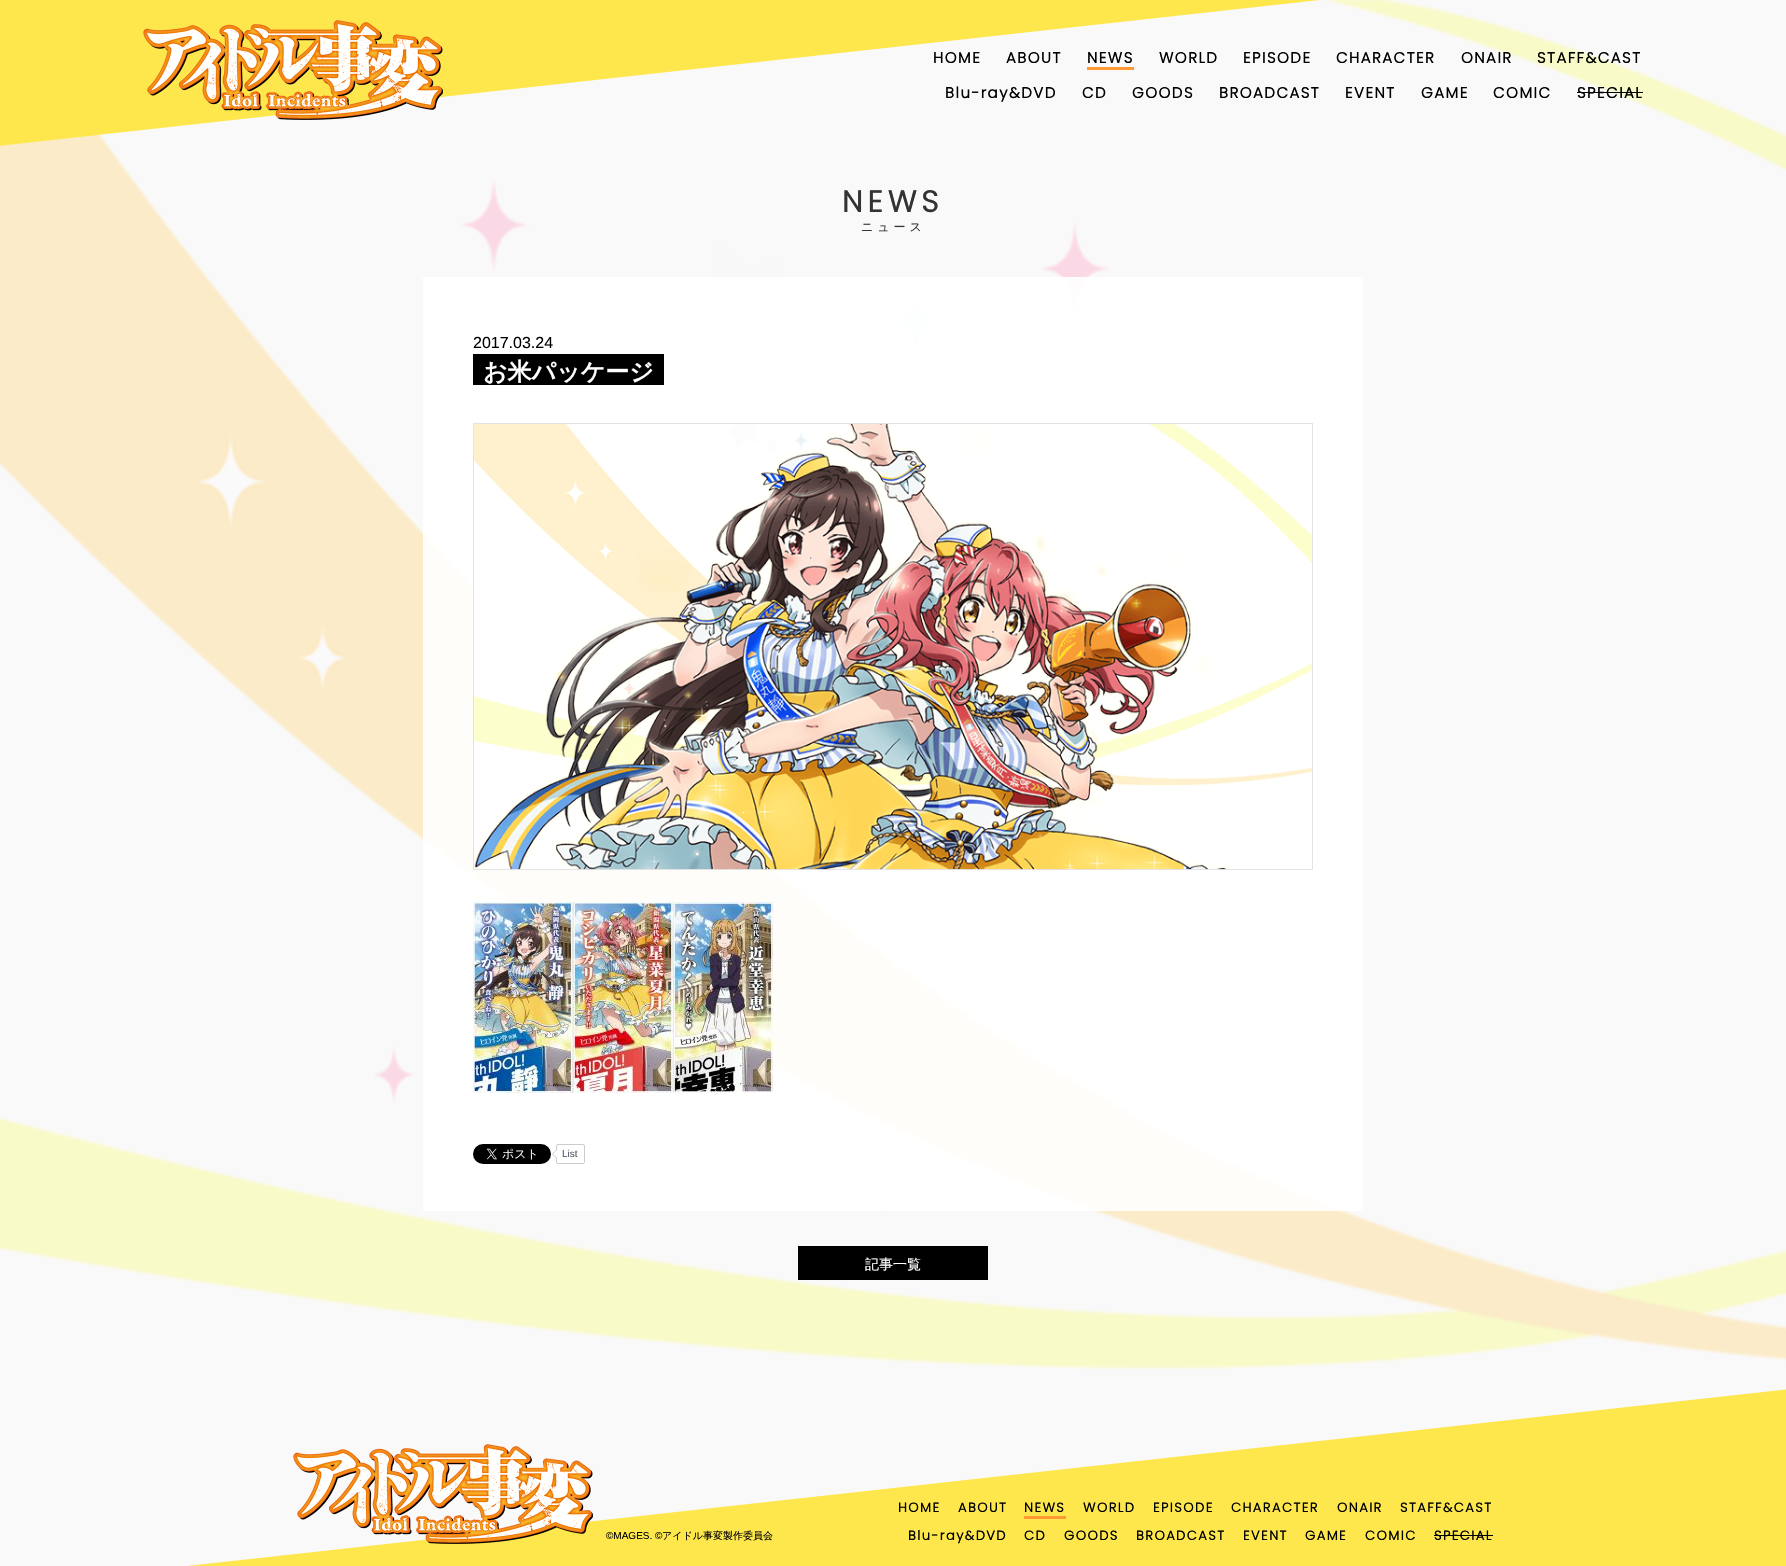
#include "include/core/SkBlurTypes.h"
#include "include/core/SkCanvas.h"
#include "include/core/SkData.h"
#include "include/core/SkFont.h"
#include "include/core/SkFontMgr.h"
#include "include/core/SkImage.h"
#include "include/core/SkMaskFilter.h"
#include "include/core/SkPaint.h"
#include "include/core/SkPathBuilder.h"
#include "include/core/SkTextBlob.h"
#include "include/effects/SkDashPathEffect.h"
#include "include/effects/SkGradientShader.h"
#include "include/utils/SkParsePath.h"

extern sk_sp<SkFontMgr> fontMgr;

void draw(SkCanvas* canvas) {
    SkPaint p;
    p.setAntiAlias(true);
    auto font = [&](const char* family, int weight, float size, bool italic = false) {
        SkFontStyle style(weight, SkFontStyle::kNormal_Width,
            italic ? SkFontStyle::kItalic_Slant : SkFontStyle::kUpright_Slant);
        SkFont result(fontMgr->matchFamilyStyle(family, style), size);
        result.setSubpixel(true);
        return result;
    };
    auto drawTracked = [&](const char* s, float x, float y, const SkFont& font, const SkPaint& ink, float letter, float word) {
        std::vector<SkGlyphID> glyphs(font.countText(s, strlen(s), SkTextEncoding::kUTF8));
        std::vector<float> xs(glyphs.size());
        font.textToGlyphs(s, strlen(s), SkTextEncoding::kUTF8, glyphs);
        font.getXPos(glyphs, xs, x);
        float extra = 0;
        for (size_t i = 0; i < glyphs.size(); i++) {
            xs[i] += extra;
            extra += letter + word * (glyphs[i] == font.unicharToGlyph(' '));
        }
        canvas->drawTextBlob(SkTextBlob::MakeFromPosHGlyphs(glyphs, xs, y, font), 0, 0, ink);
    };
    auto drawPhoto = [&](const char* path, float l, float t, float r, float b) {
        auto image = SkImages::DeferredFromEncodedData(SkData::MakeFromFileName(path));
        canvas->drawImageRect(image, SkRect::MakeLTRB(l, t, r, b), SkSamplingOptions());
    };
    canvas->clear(0xFFFAF9F9);
    drawPhoto("media/1.png", 0, 0, 1786, 1370);
    p.setColor(0xFFFDE74C);
    canvas->drawPath(SkPathBuilder().moveTo(-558, -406).lineTo(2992, -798).lineTo(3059, -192).lineTo(-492, 200).close().detach(), p);
    drawPhoto("media/2.png", 143, 20, 443, 120);
    auto font1 = font("Poppins", 700, 15);
    p.setColor(0xFF000000);
    {
        const struct { const char* s; float x, y; } items[] = {
            {"HOME", 933, 63},
            {"ABOUT", 1006, 63},
            {"NEWS", 1087, 63},
        };
        for (auto [s, x, y] : items) {
            drawTracked(s, x, y, font1, p, 1.5f, 0);
        }
    }
    p.setColor(0xFFFF9933);
    canvas->drawRect(SkRect::MakeLTRB(1087, 67, 1134, 70), p);
    p.setColor(0xFF000000);
    {
        const struct { const char* s; float x, y; } items[] = {
            {"WORLD", 1159, 63},
            {"EPISODE", 1243, 63},
            {"CHARACTER", 1336, 63},
            {"ONAIR", 1461, 63},
            {"STAFF&CAST", 1537, 63},
            {"Blu-ray&DVD", 945, 98},
            {"CD", 1082, 98},
            {"GOODS", 1132, 98},
            {"BROADCAST", 1219, 98},
            {"EVENT", 1345, 98},
            {"GAME", 1421, 98},
            {"COMIC", 1493, 98},
            {"SPECIAL", 1577, 98},
        };
        for (auto [s, x, y] : items) {
            drawTracked(s, x, y, font1, p, 1.5f, 0);
        }
    }
    canvas->drawRect(SkRect::MakeLTRB(1577, 92, 1643, 93), p);
    auto font2 = font("Poppins", 700, 30);
    p.setColor(0xFF333333);
    drawTracked("NEWS", 842, 212, font2, p, 5, 0);
    auto font3 = font("WenQuanYi Zen Hei", 500, 12);
    drawTracked("ニュース", 861, 231, font3, p, 4, 0);
    p.setColor(0xE6FFFFFF);
    canvas->drawRect(SkRect::MakeLTRB(423, 277, 1363, 1211), p);
    auto font4 = font("Liberation Sans", 400, 16);
    p.setColor(0xFF000000);
    canvas->drawString("2017.03.24", 473, 348, font4, p);
    canvas->drawRect(SkRect::MakeLTRB(473, 354, 664, 385), p);
    auto font5 = font("WenQuanYi Zen Hei", 700, 24);
    p.setColor(0xFFFFFFFF);
    canvas->drawString("お米パッケージ", 483, 380, font5, p);
    drawPhoto("media/3.png", 473, 423, 1313, 870);
    drawPhoto("media/4.png", 473, 902, 773, 1093);
    drawPhoto("media/5.png", 473, 1144, 551, 1164);
    p.setStyle(SkPaint::kStroke_Style);
    p.setStrokeWidth(1);
    p.setColor(0xFFCCCCCC);
    canvas->drawRoundRect(SkRect::MakeLTRB(556.5f, 1144.5f, 584.5f, 1163.5f), 1.5f, 1.5f, p);
    p.setStyle(SkPaint::kFill_Style);
    canvas->drawPath(SkPathBuilder().moveTo(557, 1149).lineTo(557, 1159).lineTo(552, 1154).close().detach(), p);
    auto font6 = font("Liberation Sans", 400, 10);
    p.setColor(0xFF4E5665);
    canvas->drawString("List", 562, 1157, font6, p);
    p.setColor(0xFFFFFFFF);
    canvas->drawPath(SkPathBuilder().moveTo(557, 1150).lineTo(557, 1158).lineTo(553, 1154).close().detach(), p);
    p.setColor(0xFF000000);
    canvas->drawRect(SkRect::MakeLTRB(798, 1246, 988, 1280), p);
    auto font7 = font("WenQuanYi Zen Hei", 500, 14);
    p.setColor(0xFFFFFFFF);
    canvas->drawString("記事一覧", 865, 1269, font7, p);
    p.setColor(0xFFFDE74C);
    canvas->drawPath(SkPathBuilder().moveTo(-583, 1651).lineTo(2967, 1259).lineTo(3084, 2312).lineTo(-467, 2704).close().detach(), p);
    drawPhoto("media/6.png", 293, 1444, 593, 1544);
    p.setColor(0xFF000000);
    canvas->drawString("©MAGES. ©", 606, 1539, font6, p);
    auto font8 = font("WenQuanYi Zen Hei", 500, 10);
    canvas->drawString("アイドル事変製作委員会", 662, 1539, font8, p);
    auto font9 = font("Poppins", 700, 13);
    {
        const struct { const char* s; float x, y; } items[] = {
            {"HOME", 898, 1512},
            {"ABOUT", 958, 1512},
            {"NEWS", 1024, 1512},
        };
        for (auto [s, x, y] : items) {
            drawTracked(s, x, y, font9, p, 1.5f, 0);
        }
    }
    p.setColor(0xFFFF9933);
    canvas->drawRect(SkRect::MakeLTRB(1024, 1516, 1066, 1519), p);
    p.setColor(0xFF000000);
    {
        const struct { const char* s; float x, y; } items[] = {
            {"WORLD", 1083, 1512},
            {"EPISODE", 1153, 1512},
            {"CHARACTER", 1231, 1512},
            {"ONAIR", 1337, 1512},
            {"STAFF&CAST", 1400, 1512},
            {"Blu-ray&DVD", 908, 1540},
            {"CD", 1024, 1540},
            {"GOODS", 1064, 1540},
            {"BROADCAST", 1136, 1540},
            {"EVENT", 1243, 1540},
            {"GAME", 1305, 1540},
            {"COMIC", 1365, 1540},
            {"SPECIAL", 1434, 1540},
        };
        for (auto [s, x, y] : items) {
            drawTracked(s, x, y, font9, p, 1.5f, 0);
        }
    }
    canvas->drawRect(SkRect::MakeLTRB(1434, 1535, 1493, 1536), p);
}
